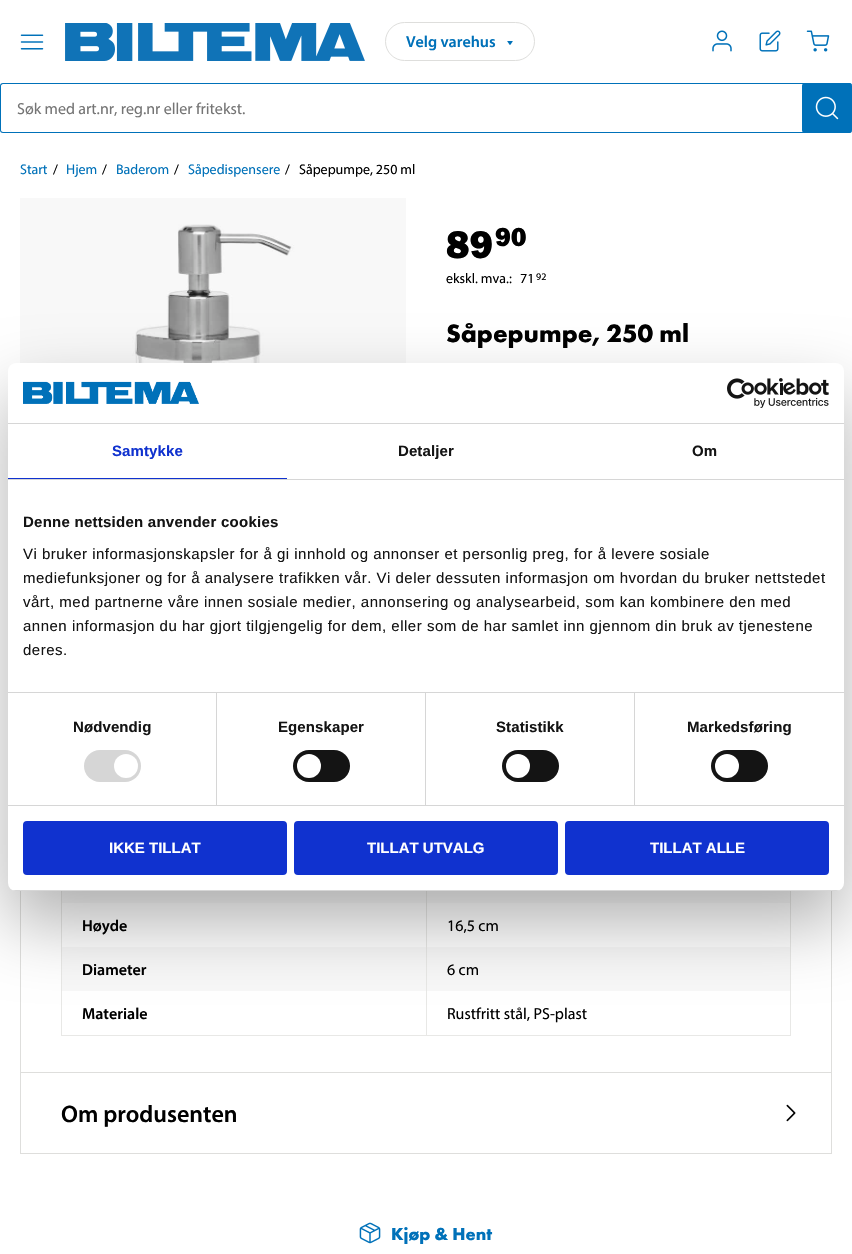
#include "include/core/SkBlurTypes.h"
#include "include/core/SkCanvas.h"
#include "include/core/SkData.h"
#include "include/core/SkFont.h"
#include "include/core/SkFontMgr.h"
#include "include/core/SkImage.h"
#include "include/core/SkMaskFilter.h"
#include "include/core/SkPaint.h"
#include "include/core/SkPathBuilder.h"
#include "include/core/SkTextBlob.h"
#include "include/effects/SkDashPathEffect.h"
#include "include/effects/SkGradientShader.h"
#include "include/utils/SkParsePath.h"

extern sk_sp<SkFontMgr> fontMgr;

void draw(SkCanvas* canvas) {
    SkPaint p;
    p.setAntiAlias(true);
    auto font = [&](const char* family, int weight, float size, bool italic = false) {
        SkFontStyle style(weight, SkFontStyle::kNormal_Width,
            italic ? SkFontStyle::kItalic_Slant : SkFontStyle::kUpright_Slant);
        SkFont result(fontMgr->matchFamilyStyle(family, style), size);
        result.setSubpixel(true);
        return result;
    };
    auto drawTracked = [&](const char* s, float x, float y, const SkFont& font, const SkPaint& ink, float letter, float word) {
        std::vector<SkGlyphID> glyphs(font.countText(s, strlen(s), SkTextEncoding::kUTF8));
        std::vector<float> xs(glyphs.size());
        font.textToGlyphs(s, strlen(s), SkTextEncoding::kUTF8, glyphs);
        font.getXPos(glyphs, xs, x);
        float extra = 0;
        for (size_t i = 0; i < glyphs.size(); i++) {
            xs[i] += extra;
            extra += letter + word * (glyphs[i] == font.unicharToGlyph(' '));
        }
        canvas->drawTextBlob(SkTextBlob::MakeFromPosHGlyphs(glyphs, xs, y, font), 0, 0, ink);
    };
    auto drawPhoto = [&](const char* path, float l, float t, float r, float b) {
        auto image = SkImages::DeferredFromEncodedData(SkData::MakeFromFileName(path));
        canvas->drawImageRect(image, SkRect::MakeLTRB(l, t, r, b), SkSamplingOptions());
    };
    canvas->clear(0xFFFFFFFF);
    drawPhoto("media/1.png", 20, 34, 44, 50);
    drawPhoto("media/2.png", 65, 23, 365, 61);
    p.setStyle(SkPaint::kStroke_Style);
    p.setStrokeWidth(1);
    p.setColor(0xFFDEDEDC);
    canvas->drawRoundRect(SkRect::MakeLTRB(385.5f, 22.5f, 534.5f, 60.5f), 19, 19, p);
    auto font1 = font("Myriad", 600, 16);
    p.setStyle(SkPaint::kFill_Style);
    p.setColor(0xFF0071B9);
    canvas->drawString("Velg varehus", 406, 47, font1, p);
    drawPhoto("media/3.png", 507, 41, 513, 45);
    drawPhoto("media/4.png", 712, 30, 732, 52);
    drawPhoto("media/5.png", 759, 30, 781, 52);
    drawPhoto("media/6.png", 806, 30, 830, 52);
    canvas->drawPath(SkPathBuilder(SkPathFillType::kEvenOdd).moveTo(3, 83).lineTo(849, 83).cubicTo(851, 83, 852, 84, 852, 86).lineTo(852, 130).cubicTo(852, 132, 851, 133, 849, 133).lineTo(3, 133).cubicTo(1, 133, 0, 132, 0, 130).lineTo(0, 86).cubicTo(0, 84, 1, 83, 3, 83).close().moveTo(3, 84).lineTo(849, 84).cubicTo(851, 84, 852, 85, 852, 86).lineTo(852, 130).cubicTo(852, 131, 851, 132, 849, 132).lineTo(3, 132).cubicTo(2, 132, 1, 131, 1, 130).lineTo(1, 86).cubicTo(1, 85, 2, 84, 3, 84).close().detach(), p);
    auto font2 = font("Myriad", 400, 16);
    p.setColor(0xFF757575);
    canvas->drawString("Søk med art.nr, reg.nr eller fritekst.", 17, 114, font2, p);
    p.setColor(0xFF0071B9);
    canvas->drawRoundRect(SkRect::MakeLTRB(802, 83, 852, 133), 3, 3, p);
    drawPhoto("media/7.png", 815, 96, 839, 120);
    auto font3 = font("Myriad", 400, 14);
    canvas->drawString("Start", 20, 174, font3, p);
    p.setColor(0xFF000000);
    canvas->drawString("/", 53, 174, font3, p);
    p.setColor(0xFF0071B9);
    canvas->drawString("Hjem", 66, 174, font3, p);
    p.setColor(0xFF000000);
    canvas->drawString("/", 102, 174, font3, p);
    p.setColor(0xFF0071B9);
    canvas->drawString("Baderom", 116, 174, font3, p);
    p.setColor(0xFF000000);
    canvas->drawString("/", 174, 174, font3, p);
    p.setColor(0xFF0071B9);
    canvas->drawString("Såpedispensere", 188, 174, font3, p);
    p.setColor(0xFF000000);
    canvas->drawString("/", 285, 174, font3, p);
    canvas->drawString("Såpepumpe, 250 ml", 299, 174, font3, p);
    drawPhoto("media/8.png", 20, 198, 406, 363);
    auto font4 = font("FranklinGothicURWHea", 900, 40);
    canvas->drawString("89", 446, 258, font4, p);
    auto font5 = font("FranklinGothicURWHea", 900, 27);
    canvas->drawString("90", 495, 246, font5, p);
    canvas->drawString("ekskl. mva.:", 446, 283, font3, p);
    canvas->drawString("71", 520, 283, font3, p);
    auto font6 = font("Myriad", 400, 10);
    canvas->drawString("92", 536, 280, font6, p);
    auto font7 = font("Futura PT", 700, 26);
    canvas->drawString("Såpepumpe, 250 ml", 446, 342, font7, p);
    p.setStyle(SkPaint::kStroke_Style);
    p.setColor(0xFFDEDEDC);
    canvas->drawRect(SkRect::MakeLTRB(20.5f, 604.5f, 831.5f, 1153.5f), p);
    p.setStyle(SkPaint::kFill_Style);
    canvas->drawRect(SkRect::MakeLTRB(21, 1072, 831, 1073), p);
    p.setColor(0xFFF8F8F8);
    canvas->drawRect(SkRect::MakeLTRB(62, 891, 790, 991), p);
    p.setStyle(SkPaint::kStroke_Style);
    p.setColor(0xFFE8E8E6);
    canvas->drawRect(SkRect::MakeLTRB(61.5f, 858.5f, 790.5f, 1035.5f), p);
    p.setStyle(SkPaint::kFill_Style);
    canvas->drawRect(SkRect::MakeLTRB(426, 891, 427, 903), p);
    p.setColor(0xFFFFFFFF);
    canvas->drawRect(SkRect::MakeLTRB(62, 903, 790, 947), p);
    p.setColor(0xFF000000);
    canvas->drawString("Høyde", 82, 931, font1, p);
    p.setColor(0xFFE8E8E6);
    canvas->drawRect(SkRect::MakeLTRB(426, 903, 427, 1035), p);
    p.setColor(0xFF000000);
    canvas->drawString("16,5 cm", 447, 931, font2, p);
    canvas->drawString("Diameter", 82, 975, font1, p);
    canvas->drawString("6 cm", 447, 975, font2, p);
    canvas->drawString("Materiale", 82, 1019, font1, p);
    canvas->drawString("Rustfritt stål, PS-plast", 447, 1019, font2, p);
    auto font8 = font("Myriad", 600, 24);
    canvas->drawString("Om produsenten", 61, 1122, font8, p);
    drawPhoto("media/9.png", 786, 1104, 796, 1122);
    drawPhoto("media/10.png", 359, 1222, 381, 1244);
    auto font9 = font("Futura PT", 700, 18);
    p.setColor(0xFF0071B9);
    canvas->drawString("Kjøp & Hent", 391, 1240, font9, p);
    p.setColor(0x4D000000);
    p.setMaskFilter(SkMaskFilter::MakeBlur(kNormal_SkBlurStyle, 34));
    canvas->drawRoundRect(SkRect::MakeLTRB(8, 395, 844, 923), 8, 8, p);
    p.setMaskFilter(nullptr);
    p.setColor(0xFFFFFFFF);
    canvas->drawRoundRect(SkRect::MakeLTRB(8, 363, 844, 891), 8, 8, p);
    p.setColor(0xFFD6D6D6);
    canvas->drawRect(SkRect::MakeLTRB(8, 423, 844, 424), p);
    drawPhoto("media/11.png", 23, 381, 199, 404);
    drawPhoto("media/12.png", 727, 378, 829, 408);
    canvas->drawRect(SkRect::MakeLTRB(8, 479, 844, 480), p);
    p.setColor(0xFF1032CF);
    canvas->drawRect(SkRect::MakeLTRB(8, 478, 287, 479), p);
    auto font10 = font("Liberation Sans", 700, 15);
    drawTracked("Samtykke", 112, 456, font10, p, 0.1f, 0);
    p.setColor(0xFF141414);
    drawTracked("Detaljer", 398, 456, font10, p, 0.1f, 0);
    drawTracked("Om", 692, 456, font10, p, 0.1f, 0);
    p.setColor(0xFFD6D6D6);
    canvas->drawRect(SkRect::MakeLTRB(8, 692, 844, 693), p);
    p.setColor(0xFF141414);
    drawTracked("Denne nettsiden anvender cookies", 23, 527, font10, p, 0.25f, 0);
    auto font11 = font("Liberation Sans", 400, 15);
    {
        const struct { const char* s; float x, y; } items[] = {
            {"Vi bruker informasjonskapsler for å gi innhold og annonser et personlig preg, for å levere sosiale", 23, 559},
            {"mediefunksjoner og for å analysere trafikken vår. Vi deler dessuten informasjon om hvordan du bruker nettstedet", 23, 583},
            {"vårt, med partnerne våre innen sosiale medier, annonsering og analysearbeid, som kan kombinere den med", 23, 607},
            {"annen informasjon du har gjort tilgjengelig for dem, eller som de har samlet inn gjennom din bruk av tjenestene", 23, 631},
            {"deres.", 23, 655},
        };
        for (auto [s, x, y] : items) {
            drawTracked(s, x, y, font11, p, 0.5f, 0);
        }
    }
    p.setColor(0xFFD6D6D6);
    canvas->drawRect(SkRect::MakeLTRB(8, 805, 844, 806), p);
    canvas->drawRect(SkRect::MakeLTRB(216, 693, 217, 805), p);
    p.setColor(0xFF141414);
    drawTracked("Nødvendig", 73, 732, font10, p, 0.1f, 0);
    p.setColor(0xFFD6D6D6);
    canvas->drawRoundRect(SkRect::MakeLTRB(84, 750, 141, 782), 16, 16, p);
    p.setColor(0xFFFFFFFF);
    canvas->drawCircle(126, 766, 12, p);
    p.setColor(0xFFD6D6D6);
    canvas->drawRect(SkRect::MakeLTRB(425, 693, 426, 805), p);
    p.setColor(0xFF141414);
    drawTracked("Egenskaper", 278, 732, font10, p, 0.1f, 0);
    canvas->drawRoundRect(SkRect::MakeLTRB(293, 750, 350, 782), 16, 16, p);
    p.setColor(0xFFFFFFFF);
    canvas->drawCircle(309, 766, 12, p);
    p.setColor(0xFFD6D6D6);
    canvas->drawRect(SkRect::MakeLTRB(634, 693, 635, 805), p);
    p.setColor(0xFF141414);
    drawTracked("Statistikk", 496, 732, font10, p, 0.1f, 0);
    canvas->drawRoundRect(SkRect::MakeLTRB(502, 750, 559, 782), 16, 16, p);
    p.setColor(0xFFFFFFFF);
    canvas->drawCircle(518, 766, 12, p);
    p.setColor(0xFF141414);
    drawTracked("Markedsføring", 687, 732, font10, p, 0.1f, 0);
    canvas->drawRoundRect(SkRect::MakeLTRB(711, 750, 768, 782), 16, 16, p);
    p.setColor(0xFFFFFFFF);
    canvas->drawCircle(727, 766, 12, p);
    canvas->save();
    canvas->clipPath(SkPathBuilder().moveTo(16, 363).lineTo(836, 363).cubicTo(840.5f, 363, 844, 366.5f, 844, 371).lineTo(844, 883).cubicTo(844, 887.5f, 840.5f, 891, 836, 891).lineTo(16, 891).cubicTo(11.5f, 891, 8, 887.5f, 8, 883).lineTo(8, 371).cubicTo(8, 366.5f, 11.5f, 363, 16, 363).close().detach(), true);
    p.setColor(0xFFD6D6D6);
    canvas->drawRect(SkRect::MakeLTRB(8, 890, 844, 891), p);
    canvas->restore();
    p.setColor(0xFF1032CF);
    canvas->drawRoundRect(SkRect::MakeLTRB(24, 822, 286, 874), 3, 3, p);
    p.setStyle(SkPaint::kStroke_Style);
    p.setStrokeWidth(2);
    canvas->drawRoundRect(SkRect::MakeLTRB(24, 822, 286, 874), 3, 3, p);
    p.setStyle(SkPaint::kFill_Style);
    p.setColor(0xFFFFFFFF);
    canvas->drawString("IKKE TILLAT", 109, 853, font10, p);
    p.setColor(0xFF1032CF);
    canvas->drawRoundRect(SkRect::MakeLTRB(295, 822, 557, 874), 3, 3, p);
    p.setStyle(SkPaint::kStroke_Style);
    canvas->drawRoundRect(SkRect::MakeLTRB(295, 822, 557, 874), 3, 3, p);
    p.setStyle(SkPaint::kFill_Style);
    p.setColor(0xFFFFFFFF);
    canvas->drawString("TILLAT UTVALG", 367, 853, font10, p);
    p.setColor(0xFF1032CF);
    canvas->drawRoundRect(SkRect::MakeLTRB(566, 822, 828, 874), 3, 3, p);
    p.setStyle(SkPaint::kStroke_Style);
    canvas->drawRoundRect(SkRect::MakeLTRB(566, 822, 828, 874), 3, 3, p);
    p.setStyle(SkPaint::kFill_Style);
    p.setColor(0xFFFFFFFF);
    canvas->drawString("TILLAT ALLE", 650, 853, font10, p);
}
